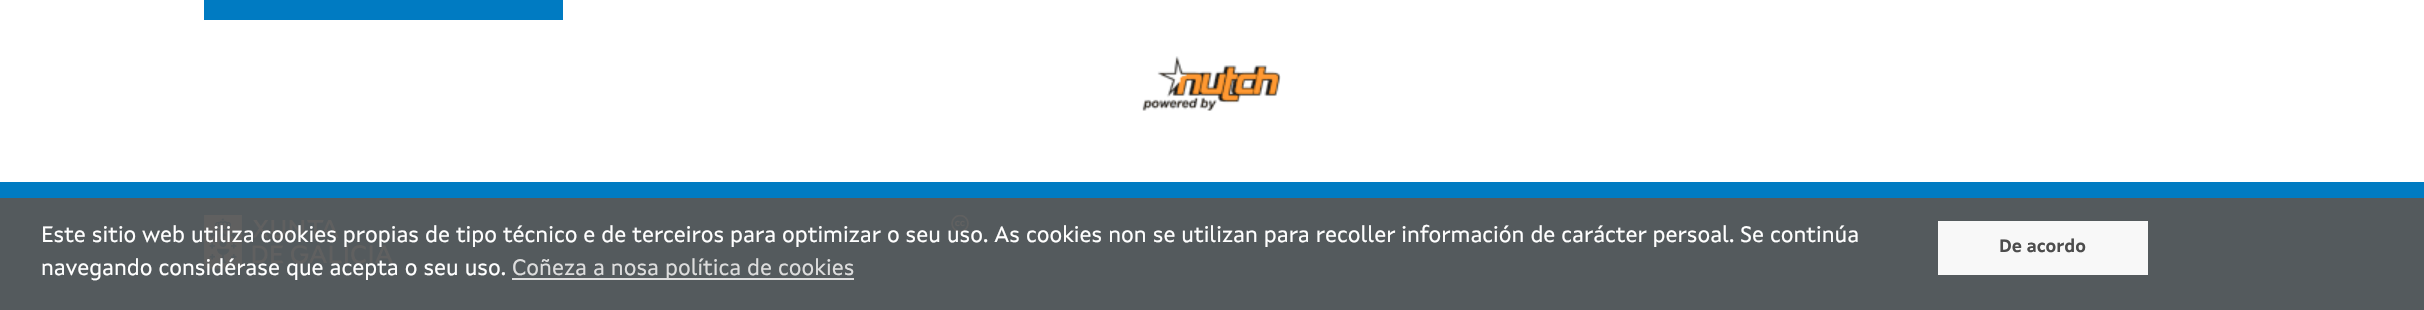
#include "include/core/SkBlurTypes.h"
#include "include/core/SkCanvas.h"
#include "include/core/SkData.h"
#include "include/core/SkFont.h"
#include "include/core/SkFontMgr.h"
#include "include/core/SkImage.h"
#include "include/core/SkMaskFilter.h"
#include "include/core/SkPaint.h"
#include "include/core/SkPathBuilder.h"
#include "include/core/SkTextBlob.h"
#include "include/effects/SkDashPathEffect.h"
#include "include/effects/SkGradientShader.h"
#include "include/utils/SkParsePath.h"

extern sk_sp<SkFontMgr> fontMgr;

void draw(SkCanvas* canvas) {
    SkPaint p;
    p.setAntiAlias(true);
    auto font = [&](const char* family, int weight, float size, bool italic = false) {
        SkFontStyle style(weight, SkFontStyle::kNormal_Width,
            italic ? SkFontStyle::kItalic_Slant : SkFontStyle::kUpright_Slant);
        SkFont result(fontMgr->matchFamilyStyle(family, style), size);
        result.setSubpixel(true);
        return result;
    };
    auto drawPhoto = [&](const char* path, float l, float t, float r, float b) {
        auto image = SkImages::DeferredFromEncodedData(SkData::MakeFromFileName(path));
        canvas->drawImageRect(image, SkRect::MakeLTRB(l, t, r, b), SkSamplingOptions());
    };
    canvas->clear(0xFFFFFFFF);
    p.setColor(0xFF007BC2);
    canvas->drawRect(SkRect::MakeLTRB(204, 0, 563, 20), p);
    drawPhoto("media/1.png", 1142, 56, 1281, 111);
    canvas->drawRect(SkRect::MakeLTRB(0, 182, 2424, 198), p);
    p.setColor(0xFF545A5D);
    canvas->drawRect(SkRect::MakeLTRB(0, 198, 2424, 310), p);
    drawPhoto("media/2.png", 204, 215, 393, 269);
    drawPhoto("media/3.png", 951, 215, 969, 233);
    auto font1 = font("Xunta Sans", 400, 22.5f);
    p.setColor(0xFFFFFFFF);
    canvas->drawString("Este sitio web utiliza cookies propias de tipo técnico e de terceiros para optimizar o seu uso. As cookies non se utilizan para recoller información de carácter persoal. Se continúa", 41, 242, font1, p);
    canvas->drawString("navegando considérase que acepta o seu uso.", 41, 275, font1, p);
    p.setColor(0xFFDDDDDD);
    canvas->drawRect(SkRect::MakeLTRB(512, 278, 854, 280), p);
    canvas->drawString("Coñeza a nosa política de cookies", 512, 275, font1, p);
    p.setColor(0xFFF8F8F8);
    canvas->drawRect(SkRect::MakeLTRB(1938, 221, 2148, 275), p);
    auto font2 = font("Xunta Sans", 700, 18);
    p.setColor(0xFF4D4D4D);
    canvas->drawString("De acordo", 1999, 252, font2, p);
}
